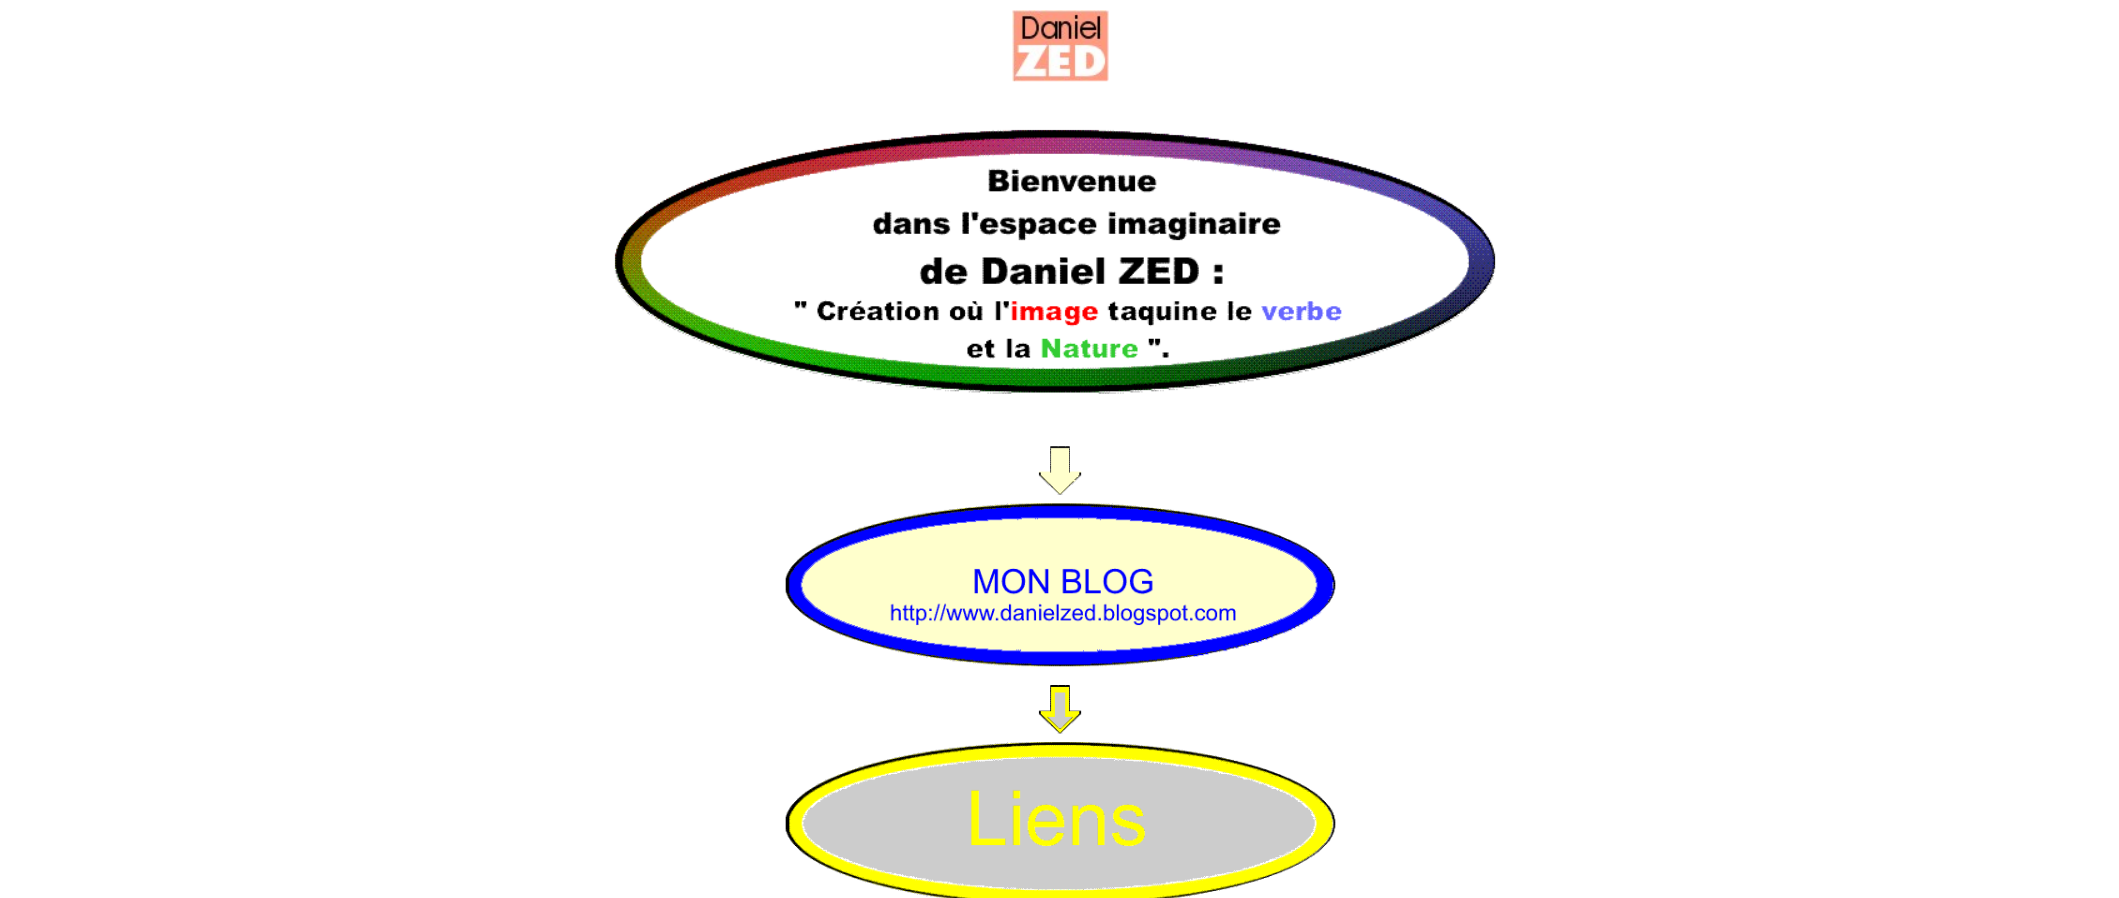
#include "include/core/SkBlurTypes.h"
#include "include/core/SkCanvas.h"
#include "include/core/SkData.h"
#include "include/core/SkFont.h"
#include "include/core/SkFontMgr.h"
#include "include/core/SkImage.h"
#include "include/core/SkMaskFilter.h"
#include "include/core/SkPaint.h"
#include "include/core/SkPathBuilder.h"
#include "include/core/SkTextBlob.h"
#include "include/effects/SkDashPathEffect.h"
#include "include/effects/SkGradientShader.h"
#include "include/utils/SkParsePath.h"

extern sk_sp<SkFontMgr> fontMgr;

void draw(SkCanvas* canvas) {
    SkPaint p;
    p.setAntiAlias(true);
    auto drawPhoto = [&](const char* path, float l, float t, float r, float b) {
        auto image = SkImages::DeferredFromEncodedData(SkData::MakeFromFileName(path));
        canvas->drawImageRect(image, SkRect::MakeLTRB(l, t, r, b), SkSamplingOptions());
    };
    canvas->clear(0xFFFFFFFF);
    drawPhoto("media/1.png", 1012, 10, 1109, 82);
    drawPhoto("media/2.png", 614, 129, 1496, 394);
    drawPhoto("media/3.png", 785, 446, 1336, 667);
    drawPhoto("media/4.png", 785, 685, 1336, 898);
}
